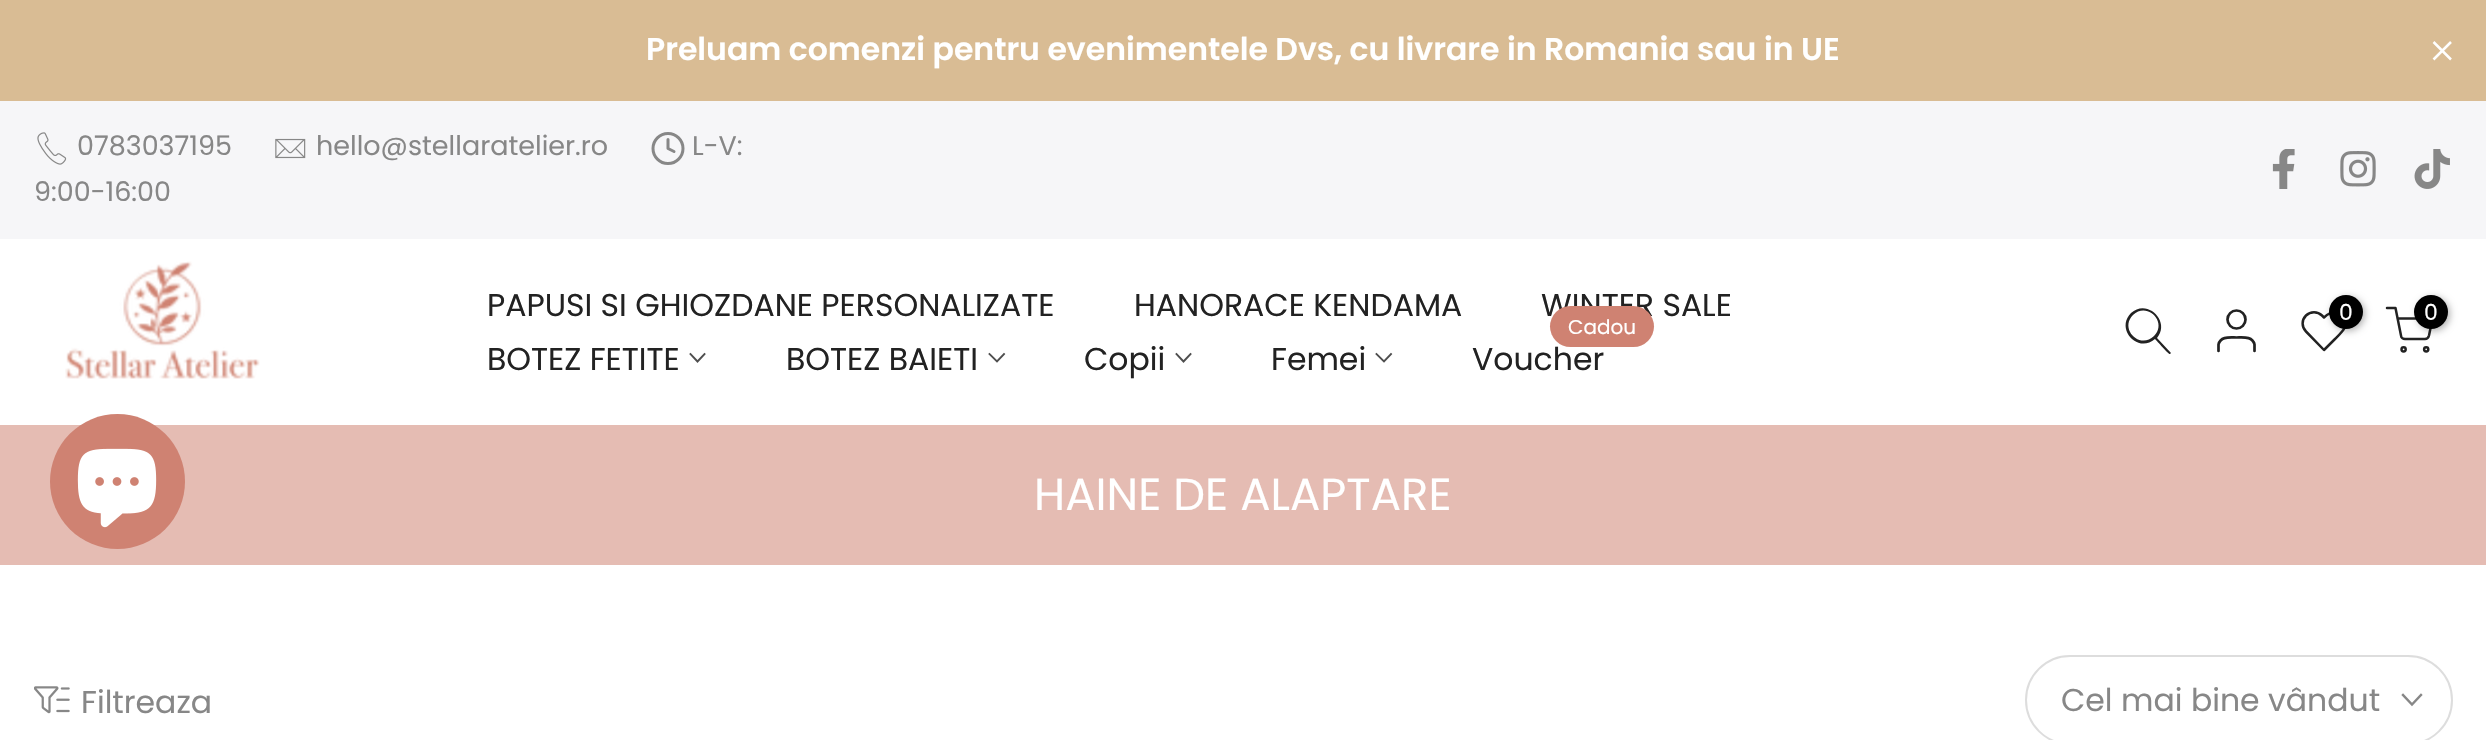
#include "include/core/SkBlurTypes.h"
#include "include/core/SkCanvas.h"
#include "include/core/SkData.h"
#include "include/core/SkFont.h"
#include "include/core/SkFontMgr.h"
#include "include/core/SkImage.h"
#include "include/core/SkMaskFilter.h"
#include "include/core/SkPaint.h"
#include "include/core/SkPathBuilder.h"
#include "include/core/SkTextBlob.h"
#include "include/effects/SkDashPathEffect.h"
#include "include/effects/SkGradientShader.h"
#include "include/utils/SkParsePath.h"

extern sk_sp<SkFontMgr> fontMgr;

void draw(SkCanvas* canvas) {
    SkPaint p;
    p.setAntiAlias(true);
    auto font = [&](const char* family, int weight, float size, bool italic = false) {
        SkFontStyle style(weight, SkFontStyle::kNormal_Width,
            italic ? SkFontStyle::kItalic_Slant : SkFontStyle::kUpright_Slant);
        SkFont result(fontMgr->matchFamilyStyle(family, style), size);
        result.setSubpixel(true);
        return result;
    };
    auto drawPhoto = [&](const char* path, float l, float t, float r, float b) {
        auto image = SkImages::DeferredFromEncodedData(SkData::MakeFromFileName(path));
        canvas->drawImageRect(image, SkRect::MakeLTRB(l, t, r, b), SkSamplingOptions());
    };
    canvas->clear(0xFFFFFFFF);
    p.setColor(0xFFD9BC94);
    canvas->drawRect(SkRect::MakeLTRB(0, 0, 2486, 101), p);
    auto font1 = font("Poppins", 600, 31.5f);
    p.setColor(0xFFFFFFFF);
    canvas->drawString("Preluam comenzi pentru evenimentele Dvs, cu livrare in Romania sau in UE", 646, 60, font1, p);
    p.setStyle(SkPaint::kStroke_Style);
    p.setStrokeWidth(2.5f);
    canvas->drawPath(SkPathBuilder().moveTo(2451, 42).lineTo(2433.5f, 59.5f).moveTo(2451, 59.5f).lineTo(2433.5f, 42).detach(), p);
    p.setStyle(SkPaint::kFill_Style);
    p.setColor(0xFFF6F6F8);
    canvas->drawRect(SkRect::MakeLTRB(0, 101, 2486, 239), p);
    drawPhoto("media/1.png", 37, 132, 67, 165);
    auto font2 = font("Poppins", 400, 27);
    p.setColor(0xFF878787);
    canvas->drawString("0783037195", 77, 155, font2, p);
    drawPhoto("media/2.png", 275, 138, 306, 159);
    canvas->drawString("hello@stellaratelier.ro", 316, 155, font2, p);
    p.setStyle(SkPaint::kStroke_Style);
    p.setStrokeWidth(3);
    canvas->drawCircle(668, 148.5f, 15, p);
    p.setStrokeCap(SkPaint::kRound_Cap);
    p.setStrokeJoin(SkPaint::kRound_Join);
    canvas->drawPath(SkPathBuilder().moveTo(668, 139.5f).lineTo(668, 148.5f).lineTo(674, 151.5f).detach(), p);
    p.setStyle(SkPaint::kFill_Style);
    canvas->drawString("L-V:", 692, 155, font2, p);
    canvas->drawString("9:00-16:00", 34, 201, font2, p);
    drawPhoto("media/3.png", 2272, 149, 2295, 189);
    drawPhoto("media/4.png", 2340, 151, 2376, 187);
    drawPhoto("media/5.png", 2414, 149, 2450, 189);
    drawPhoto("media/6.png", 65, 261, 260, 379);
    auto font3 = font("Poppins", 400, 31.5f);
    p.setColor(0xFF222222);
    {
        const struct { const char* s; float x, y; } items[] = {
            {"PAPUSI SI GHIOZDANE PERSONALIZATE", 487, 316},
            {"HANORACE KENDAMA", 1134, 316},
            {"WINTER SALE", 1541, 316},
            {"BOTEZ FETITE", 487, 370},
        };
        for (auto [s, x, y] : items) {
            canvas->drawString(s, x, y, font3, p);
        }
    }
    p.setStyle(SkPaint::kStroke_Style);
    p.setStrokeWidth(1.9f);
    p.setStrokeCap(SkPaint::kSquare_Cap);
    p.setStrokeJoin(SkPaint::kMiter_Join);
    p.setColor(0xFF4E4E4E);
    canvas->drawPath(SkPathBuilder().moveTo(704.5f, 354).lineTo(697.5f, 361.5f).lineTo(690.5f, 354).detach(), p);
    p.setStyle(SkPaint::kFill_Style);
    p.setColor(0xFF222222);
    canvas->drawString("BOTEZ BAIETI", 786, 370, font3, p);
    p.setStyle(SkPaint::kStroke_Style);
    p.setColor(0xFF4E4E4E);
    canvas->drawPath(SkPathBuilder().moveTo(1004, 354).lineTo(997, 361.5f).lineTo(989.5f, 354).detach(), p);
    p.setStyle(SkPaint::kFill_Style);
    p.setColor(0xFF222222);
    canvas->drawString("Copii", 1084, 370, font3, p);
    p.setStyle(SkPaint::kStroke_Style);
    p.setColor(0xFF4E4E4E);
    canvas->drawPath(SkPathBuilder().moveTo(1190.5f, 354).lineTo(1183.5f, 361.5f).lineTo(1176.5f, 354).detach(), p);
    p.setStyle(SkPaint::kFill_Style);
    p.setColor(0xFF222222);
    canvas->drawString("Femei", 1271, 370, font3, p);
    p.setStyle(SkPaint::kStroke_Style);
    p.setColor(0xFF4E4E4E);
    canvas->drawPath(SkPathBuilder().moveTo(1391, 354).lineTo(1384, 361.5f).lineTo(1376.5f, 354).detach(), p);
    p.setStyle(SkPaint::kFill_Style);
    p.setColor(0xFF222222);
    canvas->drawString("Voucher", 1472, 370, font3, p);
    p.setColor(0xFFCF8272);
    canvas->drawRoundRect(SkRect::MakeLTRB(1550, 306, 1654, 347), 20.5f, 20.5f, p);
    auto font4 = font("Poppins", 400, 20);
    p.setColor(0xFFFFFFFF);
    canvas->drawString("Cadou", 1568, 334, font4, p);
    p.setColor(0xFF222222);
    canvas->drawPath(SkPathBuilder(SkPathFillType::kEvenOdd).moveTo(2154, 336).cubicTo(2140, 350, 2119, 329, 2133, 315).cubicTo(2147, 301, 2168, 322, 2154, 336).close().moveTo(2155, 339).cubicTo(2138, 354, 2115, 329, 2131, 313).cubicTo(2147, 298, 2171, 321, 2157, 338).lineTo(2171, 353).lineTo(2170, 354).cubicTo(2169, 355, 2157, 341, 2155, 339).close().detach(), p);
    p.setStyle(SkPaint::kStroke_Style);
    p.setStrokeWidth(2.7f);
    p.setStrokeCap(SkPaint::kButt_Cap);
    canvas->drawCircle(2236.5f, 319.5f, 9, p);
    p.setStrokeCap(SkPaint::kRound_Cap);
    p.setStrokeJoin(SkPaint::kRound_Join);
    canvas->drawPath(SkPathBuilder().moveTo(2254.5f, 351).lineTo(2254.5f, 344.5f).cubicTo(2252.5f, 336, 2243, 337.5f, 2236.5f, 337.5f).cubicTo(2230, 337.5f, 2220.5f, 336, 2218.5f, 344.5f).lineTo(2218.5f, 351).detach(), p);
    p.setStrokeWidth(2.5f);
    canvas->drawPath(SkPathBuilder().moveTo(2342.5f, 315.5f).cubicTo(2336.5f, 309.5f, 2329.5f, 312.5f, 2324, 317.5f).lineTo(2322, 315.5f).cubicTo(2317.5f, 311, 2310.5f, 311, 2306, 315.5f).cubicTo(2301.5f, 320, 2301.5f, 327, 2306, 331.5f).lineTo(2324, 350).lineTo(2335, 339).cubicTo(2341, 333, 2351.5f, 324.5f, 2342.5f, 315.5f).close().detach(), p);
    p.setStyle(SkPaint::kFill_Style);
    p.setColor(0x4D000000);
    p.setMaskFilter(SkMaskFilter::MakeBlur(kNormal_SkBlurStyle, 3.5f));
    canvas->drawRoundRect(SkRect::MakeLTRB(2331, 297, 2365, 331), 17, 17, p);
    p.setMaskFilter(nullptr);
    p.setColor(0xFF000000);
    canvas->drawCircle(2346, 312, 17, p);
    auto font5 = font("Poppins", 400, 22);
    p.setColor(0xFFFFFFFF);
    canvas->drawString("0", 2339, 320, font5, p);
    p.setStyle(SkPaint::kStroke_Style);
    p.setColor(0xFF222222);
    canvas->drawPath(SkPathBuilder().moveTo(2387, 308).lineTo(2395.5f, 308).lineTo(2401, 335.5f).cubicTo(2401, 337.5f, 2403, 339, 2405, 339).lineTo(2425, 339).cubicTo(2427, 339, 2428.5f, 337.5f, 2429, 335.5f).lineTo(2432.5f, 318.5f).lineTo(2397.5f, 318.5f).detach(), p);
    p.setStyle(SkPaint::kFill_Style);
    p.setColor(0x4D000000);
    p.setMaskFilter(SkMaskFilter::MakeBlur(kNormal_SkBlurStyle, 3.5f));
    canvas->drawRoundRect(SkRect::MakeLTRB(2417, 297, 2450, 331), 16.5f, 16.5f, p);
    p.setMaskFilter(nullptr);
    p.setColor(0xFF000000);
    canvas->drawCircle(2431, 312, 17, p);
    p.setColor(0xFFFFFFFF);
    canvas->drawString("0", 2424, 320, font5, p);
    p.setStyle(SkPaint::kStroke_Style);
    p.setStrokeCap(SkPaint::kButt_Cap);
    p.setStrokeJoin(SkPaint::kMiter_Join);
    p.setColor(0xFF222222);
    canvas->drawCircle(2403.6f, 349.3f, 2.1f, p);
    canvas->drawCircle(2426.2f, 349.3f, 2.1f, p);
    p.setStyle(SkPaint::kFill_Style);
    p.setColor(0xFFE5BCB3);
    canvas->drawRect(SkRect::MakeLTRB(0, 425, 2486, 565), p);
    auto font6 = font("Poppins", 400, 45);
    p.setColor(0xFFFFFFFF);
    canvas->drawString("HAINE DE ALAPTARE", 1034, 510, font6, p);
    drawPhoto("media/7.png", 34, 686, 70, 714);
    p.setColor(0xFF878787);
    canvas->drawString("Filtreaza", 81, 713, font3, p);
    p.setStyle(SkPaint::kStroke_Style);
    p.setStrokeWidth(2);
    p.setColor(0xFFDDDDDD);
    canvas->drawRoundRect(SkRect::MakeLTRB(2026, 656, 2452, 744), 44, 44, p);
    p.setStyle(SkPaint::kFill_Style);
    p.setColor(0xFF878787);
    canvas->drawString("Cel mai bine vândut", 2061, 711, font3, p);
    p.setStyle(SkPaint::kStroke_Style);
    p.setStrokeWidth(2.4f);
    p.setStrokeCap(SkPaint::kSquare_Cap);
    canvas->drawPath(SkPathBuilder().moveTo(2421, 695).lineTo(2412, 704.5f).lineTo(2403, 695).detach(), p);
    p.setStyle(SkPaint::kFill_Style);
    p.setColor(0xFFCF8272);
    canvas->drawCircle(117.5f, 481.5f, 67.5f, p);
    drawPhoto("media/8.png", 77, 448, 157, 528);
}
